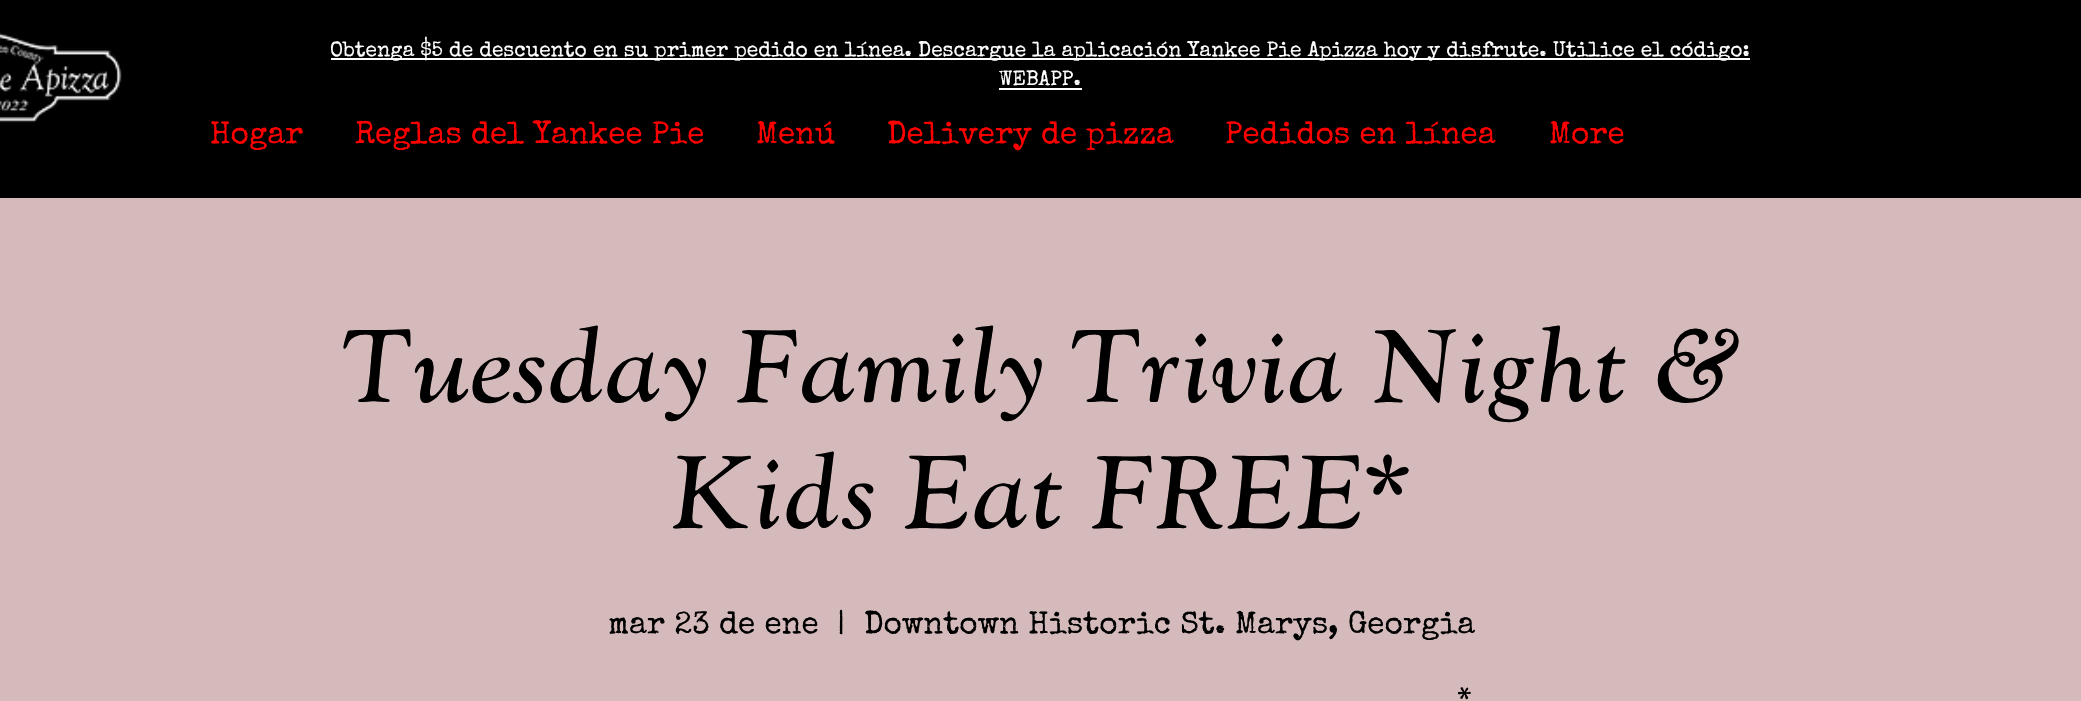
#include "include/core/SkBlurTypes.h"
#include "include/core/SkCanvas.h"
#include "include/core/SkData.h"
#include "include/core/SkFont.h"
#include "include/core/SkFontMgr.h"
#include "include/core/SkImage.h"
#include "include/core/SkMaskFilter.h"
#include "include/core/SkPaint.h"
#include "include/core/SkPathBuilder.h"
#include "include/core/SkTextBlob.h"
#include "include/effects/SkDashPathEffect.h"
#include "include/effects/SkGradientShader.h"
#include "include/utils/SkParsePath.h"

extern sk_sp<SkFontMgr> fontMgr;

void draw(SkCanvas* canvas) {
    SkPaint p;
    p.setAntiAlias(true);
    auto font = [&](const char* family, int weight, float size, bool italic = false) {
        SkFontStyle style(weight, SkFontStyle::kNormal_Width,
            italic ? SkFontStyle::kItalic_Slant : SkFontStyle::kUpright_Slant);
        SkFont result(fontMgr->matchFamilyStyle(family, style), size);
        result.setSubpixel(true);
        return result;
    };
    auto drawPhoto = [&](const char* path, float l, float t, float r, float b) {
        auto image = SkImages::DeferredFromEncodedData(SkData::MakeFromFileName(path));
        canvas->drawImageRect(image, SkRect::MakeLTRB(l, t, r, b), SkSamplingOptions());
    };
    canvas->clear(0xFF000000);
    drawPhoto("media/1.png", 0, 33, 122, 123);
    p.setColor(0xFFFFFFFF);
    canvas->drawRect(SkRect::MakeLTRB(331, 58, 1750, 60), p);
    auto font1 = font("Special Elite", 400, 21);
    canvas->drawString("Obtenga $5 de descuento en su primer pedido en línea. Descargue la aplicación Yankee Pie Apizza hoy y disfrute. Utilice el código:", 330, 56, font1, p);
    canvas->drawString("WEBAPP.", 999, 85, font1, p);
    canvas->drawRect(SkRect::MakeLTRB(999, 88, 1082, 90), p);
    auto font2 = font("Special Elite", 400, 31.5f);
    p.setColor(0xFFFF0000);
    {
        const struct { const char* s; float x, y; } items[] = {
            {"Hogar", 210, 143},
            {"Reglas del Yankee Pie", 355, 143},
            {"Menú", 756, 143},
            {"Delivery de pizza", 887, 143},
            {"Pedidos en línea", 1225, 143},
            {"More", 1549, 143},
        };
        for (auto [s, x, y] : items) {
            canvas->drawString(s, x, y, font2, p);
        }
    }
    p.setColor(0xFFD4BABA);
    canvas->drawRect(SkRect::MakeLTRB(0, 198, 2081, 701), p);
    auto font3 = font("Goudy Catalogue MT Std", 400, 105, true);
    p.setColor(0xFF000000);
    canvas->drawString("Tuesday Family Trivia Night &", 342, 402, font3, p);
    canvas->drawString("Kids Eat FREE*", 671, 528, font3, p);
    {
        const struct { const char* s; float x, y; } items[] = {
            {"mar 23 de ene", 608, 633},
            {"|", 837, 633},
            {"Downtown Historic St. Marys, Georgia", 864, 633},
        };
        for (auto [s, x, y] : items) {
            canvas->drawString(s, x, y, font2, p);
        }
    }
    auto font4 = font("Special Elite", 400, 28);
    canvas->drawString("*", 1457, 707, font4, p);
}
